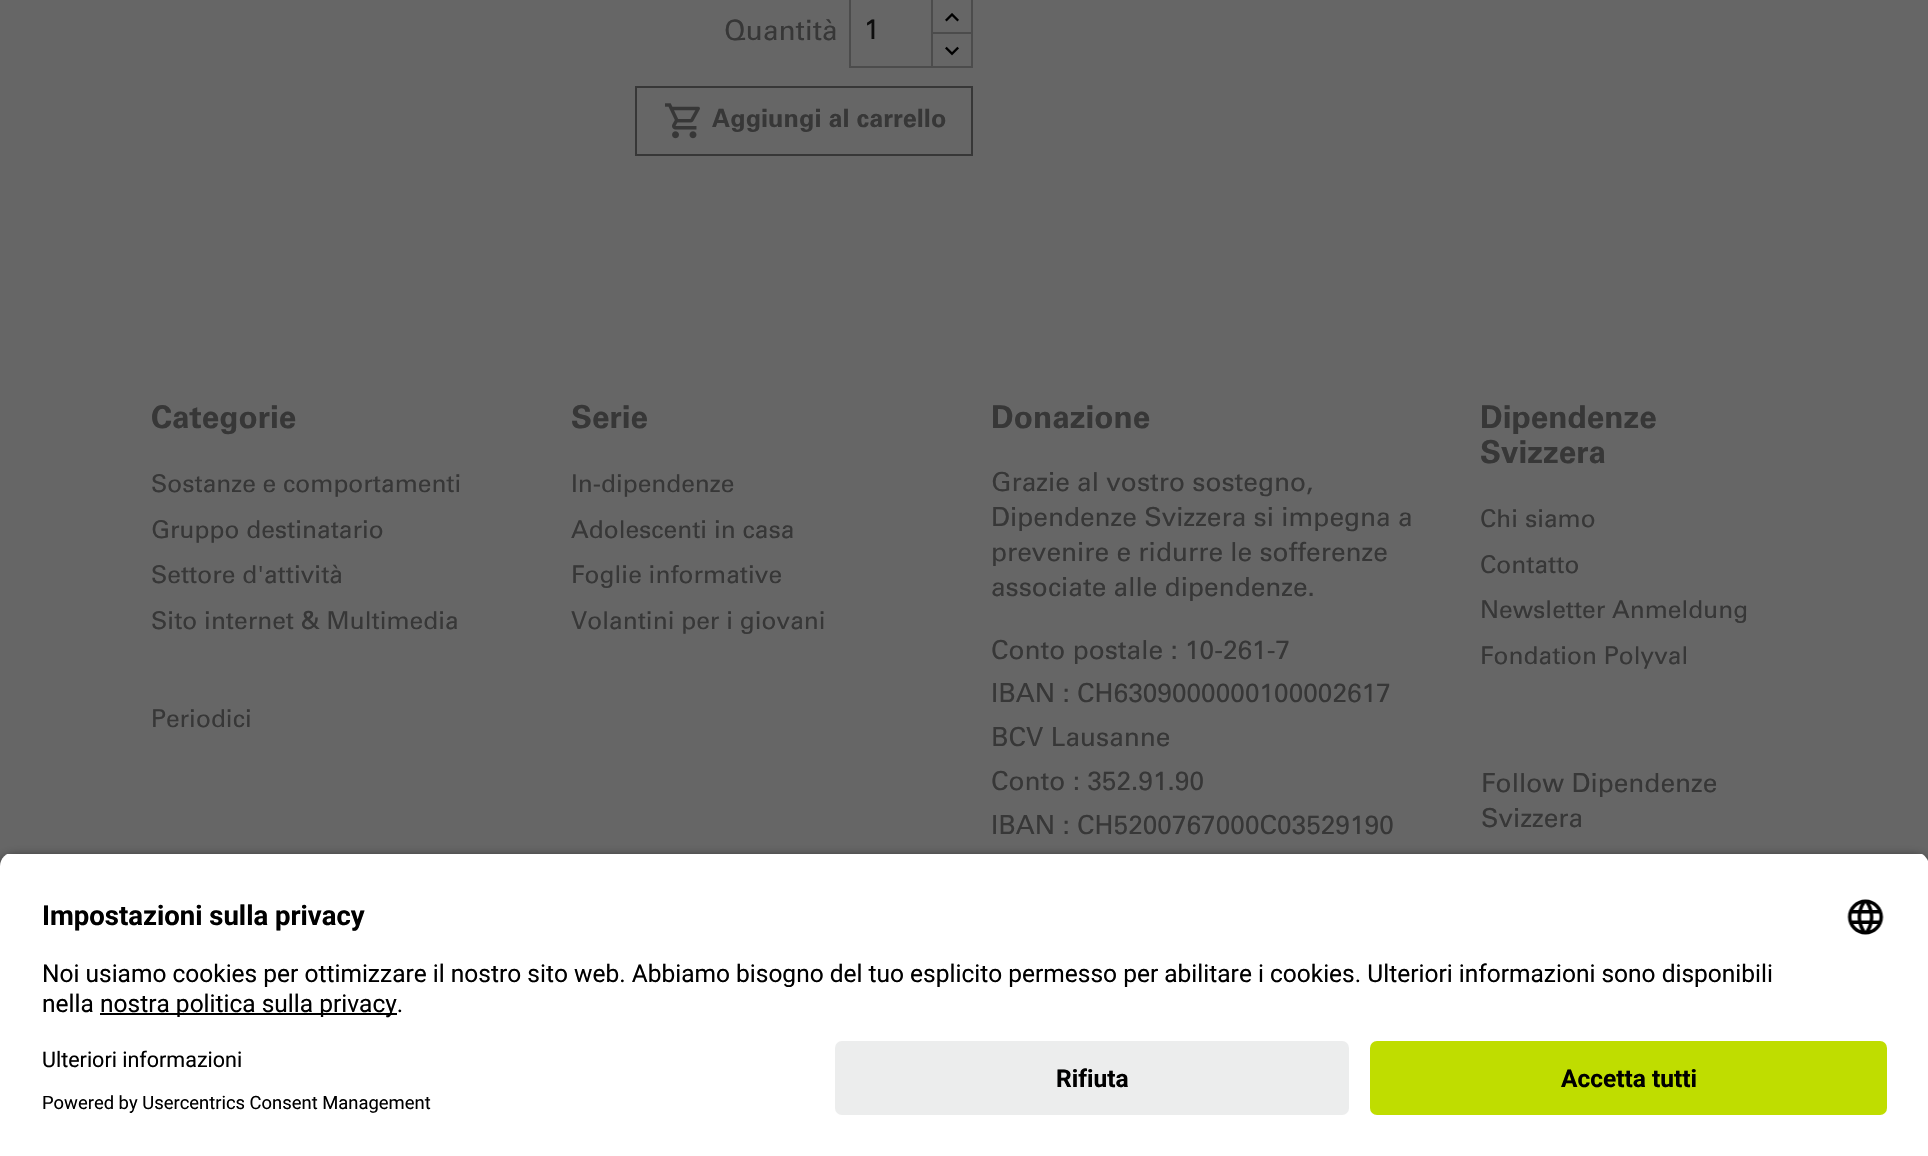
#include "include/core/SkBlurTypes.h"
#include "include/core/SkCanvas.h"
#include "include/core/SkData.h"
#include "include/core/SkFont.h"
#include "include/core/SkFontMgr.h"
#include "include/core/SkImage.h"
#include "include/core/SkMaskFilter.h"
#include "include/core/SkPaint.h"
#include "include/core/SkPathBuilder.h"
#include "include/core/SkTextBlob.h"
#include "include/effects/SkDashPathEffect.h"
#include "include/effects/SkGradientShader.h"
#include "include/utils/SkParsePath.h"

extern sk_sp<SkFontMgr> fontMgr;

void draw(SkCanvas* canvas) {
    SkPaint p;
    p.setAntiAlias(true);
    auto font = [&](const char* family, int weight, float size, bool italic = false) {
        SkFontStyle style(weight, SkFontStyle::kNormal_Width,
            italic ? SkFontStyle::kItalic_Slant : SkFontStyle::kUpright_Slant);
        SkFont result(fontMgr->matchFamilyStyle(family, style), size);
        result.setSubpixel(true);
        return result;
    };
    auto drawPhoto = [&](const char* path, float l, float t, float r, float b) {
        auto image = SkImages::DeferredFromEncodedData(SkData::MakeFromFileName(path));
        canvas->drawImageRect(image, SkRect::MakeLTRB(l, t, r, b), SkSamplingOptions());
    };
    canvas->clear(0xFF666666);
    auto font1 = font("Univers", 400, 28);
    p.setColor(0xFF373737);
    canvas->drawString("Quantità", 724, 40, font1, p);
    p.setStyle(SkPaint::kStroke_Style);
    p.setStrokeWidth(2);
    p.setColor(0xFF4C4C4C);
    canvas->drawRect(SkRect::MakeLTRB(932, -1, 972, 34), p);
    p.setStyle(SkPaint::kFill_Style);
    p.setColor(0xFF666666);
    canvas->drawRect(SkRect::MakeLTRB(933, 34, 971, 35), p);
    p.setStyle(SkPaint::kStroke_Style);
    p.setColor(0xFF4C4C4C);
    canvas->drawRect(SkRect::MakeLTRB(932, 33, 972, 67), p);
    canvas->drawRect(SkRect::MakeLTRB(850, -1, 932, 67), p);
    p.setStyle(SkPaint::kFill_Style);
    p.setColor(0xFF0E0E0E);
    canvas->drawString("1", 864, 39, font1, p);
    drawPhoto("media/1.png", 945, 13, 959, 22);
    drawPhoto("media/2.png", 945, 46, 959, 56);
    p.setStyle(SkPaint::kStroke_Style);
    p.setColor(0xFF373737);
    canvas->drawRect(SkRect::MakeLTRB(636, 87, 972, 155), p);
    drawPhoto("media/3.png", 665, 103, 700, 139);
    auto font2 = font("Univers", 700, 25.25f);
    p.setStyle(SkPaint::kFill_Style);
    canvas->drawString("Aggiungi al carrello", 712, 127, font2, p);
    auto font3 = font("Univers", 700, 31.5f);
    canvas->drawString("Categorie", 151, 428, font3, p);
    auto font4 = font("Univers", 400, 24.5f);
    {
        const struct { const char* s; float x, y; } items[] = {
            {"Sostanze e comportamenti", 151, 492},
            {"Gruppo destinatario", 151, 538},
            {"Settore d'attività", 151, 583},
            {"Sito internet & Multimedia", 151, 629},
            {"Periodici", 151, 727},
        };
        for (auto [s, x, y] : items) {
            canvas->drawString(s, x, y, font4, p);
        }
    }
    canvas->drawString("Serie", 571, 428, font3, p);
    {
        const struct { const char* s; float x, y; } items[] = {
            {"In-dipendenze", 571, 492},
            {"Adolescenti in casa", 571, 538},
            {"Foglie informative", 571, 583},
            {"Volantini per i giovani", 571, 629},
        };
        for (auto [s, x, y] : items) {
            canvas->drawString(s, x, y, font4, p);
        }
    }
    canvas->drawString("Donazione", 991, 428, font3, p);
    auto font5 = font("Univers", 400, 26.25f);
    {
        const struct { const char* s; float x, y; } items[] = {
            {"Grazie al vostro sostegno,", 991, 491},
            {"Dipendenze Svizzera si impegna a", 991, 526},
            {"prevenire e ridurre le sofferenze", 991, 561},
            {"associate alle dipendenze.", 991, 596},
            {"Conto postale : 10-261-7", 991, 659},
            {"IBAN : CH6309000000100002617", 991, 702},
            {"BCV Lausanne", 991, 746},
            {"Conto : 352.91.90", 991, 790},
            {"IBAN : CH5200767000C03529190", 991, 834},
        };
        for (auto [s, x, y] : items) {
            canvas->drawString(s, x, y, font5, p);
        }
    }
    canvas->drawString("Dipendenze", 1480, 428, font3, p);
    canvas->drawString("Svizzera", 1480, 463, font3, p);
    {
        const struct { const char* s; float x, y; } items[] = {
            {"Chi siamo", 1480, 527},
            {"Contatto", 1480, 573},
            {"Newsletter Anmeldung", 1480, 618},
            {"Fondation Polyval", 1480, 664},
        };
        for (auto [s, x, y] : items) {
            canvas->drawString(s, x, y, font4, p);
        }
    }
    canvas->drawString("Follow Dipendenze", 1481, 792, font5, p);
    canvas->drawString("Svizzera", 1481, 827, font5, p);
    p.setColor(0xCC000000);
    p.setMaskFilter(SkMaskFilter::MakeBlur(kNormal_SkBlurStyle, 6));
    canvas->drawRoundRect(SkRect::MakeLTRB(0, 858, 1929, 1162), 14, 14, p);
    p.setMaskFilter(nullptr);
    canvas->save();
    canvas->clipPath(SkPathBuilder().moveTo(14, 852).lineTo(1915, 852).cubicTo(1922.5f, 852, 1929, 858.5f, 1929, 866).lineTo(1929, 1027).lineTo(0, 1027).lineTo(0, 866).cubicTo(0, 858.5f, 6.5f, 852, 14, 852).close().detach(), true);
    p.setColor(0xFFFFFFFF);
    canvas->drawRect(SkRect::MakeLTRB(0, 854, 1928, 1027), p);
    canvas->restore();
    auto font6 = font("Roboto", 700, 27.5f);
    p.setColor(0xFF000000);
    canvas->drawString("Impostazioni sulla privacy", 42, 925, font6, p);
    drawPhoto("media/4.png", 1847, 899, 1884, 935);
    auto font7 = font("Roboto", 400, 24.5f);
    canvas->drawString("Noi usiamo cookies per ottimizzare il nostro sito web. Abbiamo bisogno del tuo esplicito permesso per abilitare i cookies. Ulteriori informazioni sono disponibili", 42, 982, font7, p);
    canvas->drawString("nella", 42, 1012, font7, p);
    canvas->drawRect(SkRect::MakeLTRB(100, 1013, 397, 1015), p);
    canvas->drawString("nostra politica sulla privacy.", 100, 1012, font7, p);
    p.setColor(0xFFFFFFFF);
    canvas->drawRect(SkRect::MakeLTRB(0, 1027, 1928, 1156), p);
    auto font8 = font("Roboto", 400, 21.5f);
    p.setColor(0xFF000000);
    canvas->drawString("Ulteriori informazioni", 42, 1067, font8, p);
    auto font9 = font("Roboto", 400, 18.4f);
    canvas->drawString("Powered by Usercentrics Consent Management", 42, 1109, font9, p);
    p.setColor(0xFFECEDED);
    canvas->drawRoundRect(SkRect::MakeLTRB(835, 1041, 1349, 1115), 7, 7, p);
    auto font10 = font("Roboto", 700, 24.5f);
    p.setColor(0xFF000000);
    canvas->drawString("Rifiuta", 1056, 1087, font10, p);
    p.setColor(0xFFBFDD00);
    canvas->drawRoundRect(SkRect::MakeLTRB(1370, 1041, 1887, 1115), 7, 7, p);
    p.setColor(0xFF000000);
    canvas->drawString("Accetta tutti", 1561, 1087, font10, p);
}
